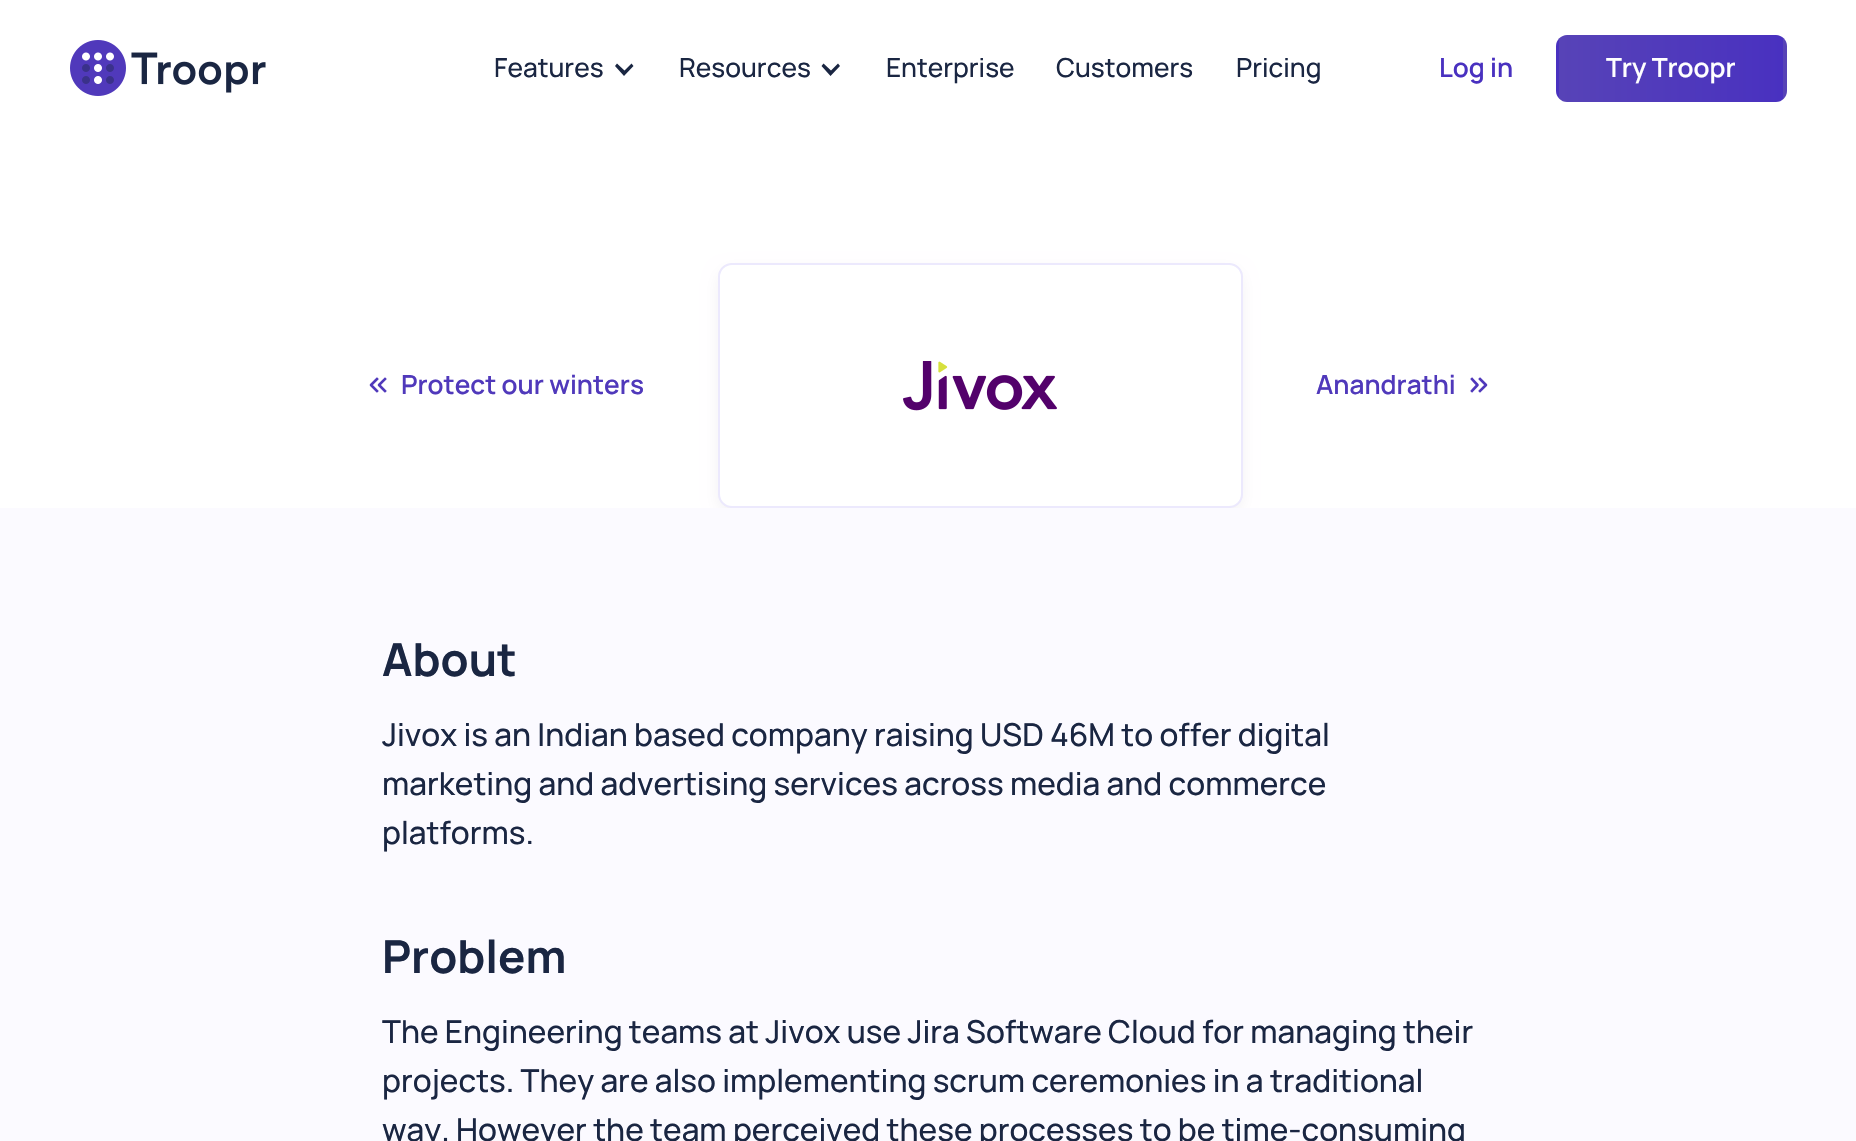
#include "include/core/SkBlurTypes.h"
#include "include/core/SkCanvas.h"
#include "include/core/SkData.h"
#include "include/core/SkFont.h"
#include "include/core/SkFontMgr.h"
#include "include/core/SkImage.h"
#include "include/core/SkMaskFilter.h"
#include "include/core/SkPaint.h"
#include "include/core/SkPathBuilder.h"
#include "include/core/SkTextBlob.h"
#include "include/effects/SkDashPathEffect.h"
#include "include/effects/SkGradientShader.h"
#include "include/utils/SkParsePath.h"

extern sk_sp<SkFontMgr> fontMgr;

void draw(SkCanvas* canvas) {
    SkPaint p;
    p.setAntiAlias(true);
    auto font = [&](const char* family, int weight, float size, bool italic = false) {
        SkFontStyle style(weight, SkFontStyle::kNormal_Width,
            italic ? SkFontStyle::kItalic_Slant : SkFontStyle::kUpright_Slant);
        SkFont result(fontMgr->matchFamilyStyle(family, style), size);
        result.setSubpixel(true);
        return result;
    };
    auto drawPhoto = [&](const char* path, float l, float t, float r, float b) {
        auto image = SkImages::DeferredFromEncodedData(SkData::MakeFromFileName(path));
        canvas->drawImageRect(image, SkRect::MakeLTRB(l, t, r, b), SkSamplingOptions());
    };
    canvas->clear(0xFFFBFAFF);
    p.setColor(0xFFFFFFFF);
    canvas->drawRect(SkRect::MakeLTRB(0, 0, 1856, 508), p);
    drawPhoto("media/1.png", 70, 40, 266, 96);
    auto font1 = font("Manrope", 500, 26.25f);
    p.setColor(0xFF1A2642);
    canvas->drawString("Features", 494, 77, font1, p);
    canvas->drawPath(SkPathBuilder().moveTo(631.5f, 63.5f).lineTo(624.5f, 70.5f).lineTo(617, 63.5f).lineTo(615, 66).lineTo(624, 76).lineTo(633.5f, 66).close().detach(), p);
    canvas->drawString("Resources", 679, 77, font1, p);
    canvas->drawPath(SkPathBuilder().moveTo(838, 63.5f).lineTo(831, 70.5f).lineTo(823.5f, 63.5f).lineTo(821.5f, 66).lineTo(830.5f, 76).lineTo(840, 66).close().detach(), p);
    {
        const struct { const char* s; float x, y; } items[] = {
            {"Enterprise", 886, 77},
            {"Customers", 1056, 77},
            {"Pricing", 1236, 77},
        };
        for (auto [s, x, y] : items) {
            canvas->drawString(s, x, y, font1, p);
        }
    }
    auto font2 = font("Manrope", 600, 26.25f);
    p.setColor(0xFF4931C0);
    canvas->drawString("Log in", 1439, 77, font2, p);
    canvas->save();
    canvas->clipPath(SkPathBuilder().moveTo(1567, 35).lineTo(1776, 35).cubicTo(1782, 35, 1787, 40, 1787, 46).lineTo(1787, 91).cubicTo(1787, 97, 1782, 102, 1776, 102).lineTo(1567, 102).cubicTo(1561, 102, 1556, 97, 1556, 91).lineTo(1556, 46).cubicTo(1556, 40, 1561, 35, 1567, 35).close().detach(), true);
    {
        const SkColor colors[] = {0xFF4931C0, 0xFF5743B7};
        const float stops[] = {0, 1};
        const SkPoint ends[] = {{1559, 68}, {1335, 68}};
        p.setShader(SkGradientShader::MakeLinear(ends, colors, stops, 2, SkTileMode::kClamp));
        p.setAlpha(255);
    }
    canvas->drawRect(SkRect::MakeLTRB(1556, 35, 1559, 102), p);
    {
        const SkColor colors[] = {0xFF4931C0, 0xFF5743B7};
        const float stops[] = {0, 1};
        const SkPoint ends[] = {{1783, 68}, {1559, 68}};
        p.setShader(SkGradientShader::MakeLinear(ends, colors, stops, 2, SkTileMode::kClamp));
        p.setAlpha(255);
    }
    canvas->drawRect(SkRect::MakeLTRB(1559, 35, 1783, 102), p);
    {
        const SkColor colors[] = {0xFF4931C0, 0xFF5743B7};
        const float stops[] = {0, 1};
        const SkPoint ends[] = {{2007, 68}, {1783, 68}};
        p.setShader(SkGradientShader::MakeLinear(ends, colors, stops, 2, SkTileMode::kClamp));
        p.setAlpha(255);
    }
    canvas->drawRect(SkRect::MakeLTRB(1783, 35, 1787, 102), p);
    canvas->restore();
    p.setShader(nullptr);
    p.setColor(0xFFFFFFFF);
    canvas->drawString("Try Troopr", 1606, 77, font2, p);
    p.setStyle(SkPaint::kStroke_Style);
    p.setStrokeWidth(2.6f);
    p.setStrokeCap(SkPaint::kSquare_Cap);
    p.setStrokeJoin(SkPaint::kRound_Join);
    p.setColor(0xFF5039BB);
    canvas->drawPath(SkPathBuilder().moveTo(377, 391).lineTo(371, 385).lineTo(377, 379).moveTo(385, 391).lineTo(379, 385).lineTo(385, 379).detach(), p);
    p.setStyle(SkPaint::kFill_Style);
    canvas->drawString("Protect our winters", 401, 394, font2, p);
    canvas->save();
    canvas->clipRect(SkRect::MakeLTRB(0, 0, 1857, 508));
    p.setColor(0x140D0534);
    p.setMaskFilter(SkMaskFilter::MakeBlur(kNormal_SkBlurStyle, 9));
    canvas->drawRoundRect(SkRect::MakeLTRB(721, 273, 1239, 511), 11, 11, p);
    p.setMaskFilter(nullptr);
    canvas->restore();
    p.setColor(0xFFFFFFFF);
    canvas->drawRoundRect(SkRect::MakeLTRB(718, 263, 1243, 508), 14, 14, p);
    p.setStyle(SkPaint::kStroke_Style);
    p.setStrokeWidth(2);
    p.setStrokeCap(SkPaint::kButt_Cap);
    p.setStrokeJoin(SkPaint::kMiter_Join);
    p.setColor(0x33A08FF6);
    canvas->drawRoundRect(SkRect::MakeLTRB(719, 264, 1242, 507), 13, 13, p);
    drawPhoto("media/2.png", 903, 361, 1057, 411);
    p.setStyle(SkPaint::kFill_Style);
    p.setColor(0xFF5039BB);
    canvas->drawString("Anandrathi", 1316, 394, font2, p);
    p.setStyle(SkPaint::kStroke_Style);
    p.setStrokeWidth(2.6f);
    p.setStrokeCap(SkPaint::kSquare_Cap);
    p.setStrokeJoin(SkPaint::kRound_Join);
    canvas->drawPath(SkPathBuilder().moveTo(1480, 391).lineTo(1486, 385).lineTo(1480, 379).moveTo(1472, 391).lineTo(1477.5f, 385).lineTo(1472, 379).detach(), p);
    auto font3 = font("Manrope", 700, 45.5f);
    p.setStyle(SkPaint::kFill_Style);
    p.setColor(0xFF1A2642);
    canvas->drawString("About", 382, 676, font3, p);
    auto font4 = font("Manrope", 500, 31.5f);
    {
        const struct { const char* s; float x, y; } items[] = {
            {"Jivox is an Indian based company raising USD 46M to offer digital", 382, 746},
            {"marketing and advertising services across media and commerce", 382, 795},
            {"platforms.", 382, 844},
        };
        for (auto [s, x, y] : items) {
            canvas->drawString(s, x, y, font4, p);
        }
    }
    canvas->drawString("Problem", 382, 973, font3, p);
    {
        const struct { const char* s; float x, y; } items[] = {
            {"The Engineering teams at Jivox use Jira Software Cloud for managing their", 382, 1043},
            {"projects. They are also implementing scrum ceremonies in a traditional", 382, 1092},
            {"way. However the team perceived these processes to be time-consuming", 382, 1141},
        };
        for (auto [s, x, y] : items) {
            canvas->drawString(s, x, y, font4, p);
        }
    }
}
